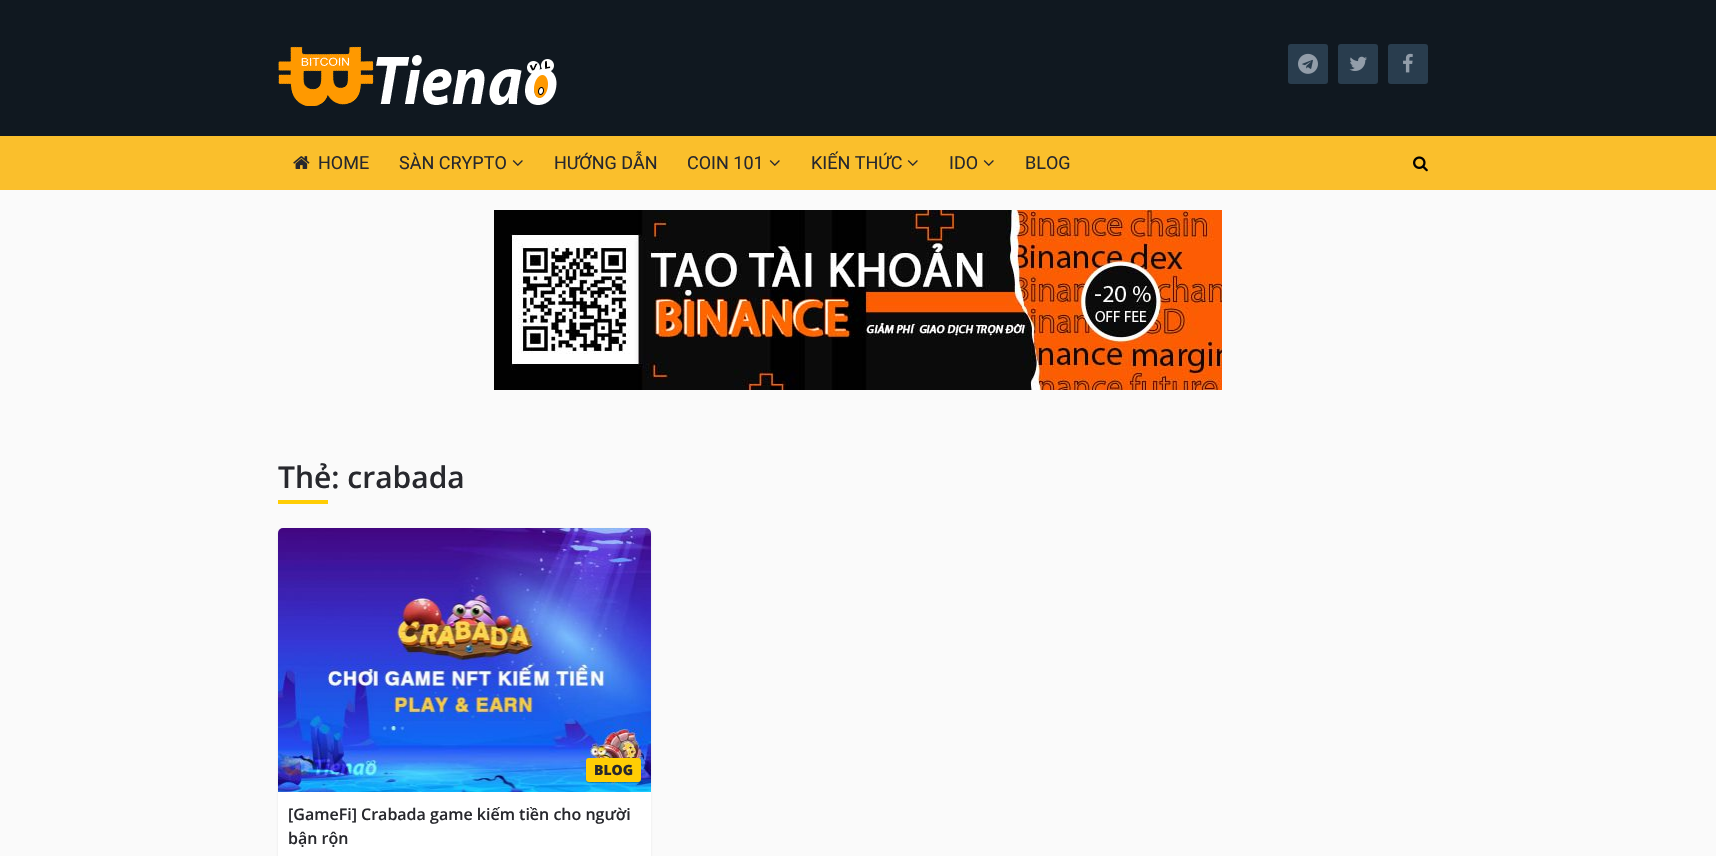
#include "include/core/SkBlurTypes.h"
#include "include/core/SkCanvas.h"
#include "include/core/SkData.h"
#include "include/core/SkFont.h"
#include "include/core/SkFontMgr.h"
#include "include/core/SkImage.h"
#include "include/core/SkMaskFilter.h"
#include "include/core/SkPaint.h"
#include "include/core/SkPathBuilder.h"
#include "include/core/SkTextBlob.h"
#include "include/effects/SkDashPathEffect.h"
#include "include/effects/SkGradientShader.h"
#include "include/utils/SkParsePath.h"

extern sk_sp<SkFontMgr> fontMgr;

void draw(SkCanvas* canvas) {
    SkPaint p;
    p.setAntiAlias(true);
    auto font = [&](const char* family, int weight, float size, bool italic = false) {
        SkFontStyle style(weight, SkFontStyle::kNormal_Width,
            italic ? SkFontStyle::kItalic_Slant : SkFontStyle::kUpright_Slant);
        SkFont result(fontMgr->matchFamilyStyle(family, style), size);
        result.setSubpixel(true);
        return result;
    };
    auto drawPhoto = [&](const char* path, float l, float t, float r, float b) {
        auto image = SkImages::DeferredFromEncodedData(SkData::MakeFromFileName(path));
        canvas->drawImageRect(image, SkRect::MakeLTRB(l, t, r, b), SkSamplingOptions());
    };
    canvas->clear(0xFFFAFAFA);
    p.setColor(0xFF101820);
    canvas->drawRect(SkRect::MakeLTRB(0, 0, 1716, 136), p);
    drawPhoto("media/1.png", 278, 46, 557, 106);
    p.setColor(0xFF293D4E);
    canvas->drawRoundRect(SkRect::MakeLTRB(1288, 44, 1328, 84), 3, 3, p);
    drawPhoto("media/2.png", 1298, 53, 1318, 74);
    canvas->drawRoundRect(SkRect::MakeLTRB(1338, 44, 1378, 84), 3, 3, p);
    drawPhoto("media/3.png", 1349, 56, 1367, 71);
    canvas->drawRoundRect(SkRect::MakeLTRB(1388, 44, 1428, 84), 3, 3, p);
    drawPhoto("media/4.png", 1403, 53, 1413, 73);
    p.setColor(0xFFFABF2C);
    canvas->drawRect(SkRect::MakeLTRB(0, 136, 1716, 190), p);
    drawPhoto("media/5.png", 293, 156, 310, 169);
    auto font1 = font("Roboto", 400, 18);
    p.setColor(0xFF27282D);
    canvas->drawString("HOME", 318, 169, font1, p);
    canvas->drawString("SÀN CRYPTO", 399, 169, font1, p);
    drawPhoto("media/6.png", 512, 160, 523, 166);
    canvas->drawString("HƯỚNG DẪN", 554, 169, font1, p);
    canvas->drawString("COIN 101", 687, 169, font1, p);
    drawPhoto("media/6.png", 769, 160, 780, 166);
    canvas->drawString("KIẾN THỨC", 811, 169, font1, p);
    drawPhoto("media/6.png", 907, 160, 918, 166);
    canvas->drawString("IDO", 949, 169, font1, p);
    drawPhoto("media/6.png", 983, 160, 994, 166);
    canvas->drawString("BLOG", 1025, 169, font1, p);
    drawPhoto("media/7.png", 1413, 156, 1428, 172);
    drawPhoto("media/8.png", 494, 210, 1222, 390);
    auto font2 = font("Open Sans", 600, 30);
    canvas->drawString("Thẻ: crabada", 278, 488, font2, p);
    p.setColor(0xFFFFCD04);
    canvas->drawRect(SkRect::MakeLTRB(278, 500, 328, 504), p);
    p.setColor(0x1A000000);
    p.setMaskFilter(SkMaskFilter::MakeBlur(kNormal_SkBlurStyle, 1));
    canvas->drawRoundRect(SkRect::MakeLTRB(278, 529, 651, 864), 5, 5, p);
    p.setMaskFilter(nullptr);
    p.setColor(0xFFFFFFFF);
    canvas->drawRoundRect(SkRect::MakeLTRB(278, 528, 651, 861), 5, 5, p);
    drawPhoto("media/9.png", 278, 528, 651, 792);
    p.setColor(0x40000000);
    p.setMaskFilter(SkMaskFilter::MakeBlur(kNormal_SkBlurStyle, 0.5f));
    canvas->drawRoundRect(SkRect::MakeLTRB(586, 759, 641, 783), 3, 3, p);
    p.setMaskFilter(nullptr);
    p.setColor(0xFFFFCD04);
    canvas->drawRoundRect(SkRect::MakeLTRB(586, 758, 641, 782), 3, 3, p);
    auto font3 = font("Open Sans", 800, 14);
    p.setColor(0xFF27282D);
    canvas->drawString("BLOG", 594, 775, font3, p);
    auto font4 = font("Open Sans", 600, 16);
    canvas->drawString("[GameFi] Crabada game kiếm tiền cho người", 288, 820, font4, p);
    canvas->drawString("bận rộn", 288, 844, font4, p);
}
